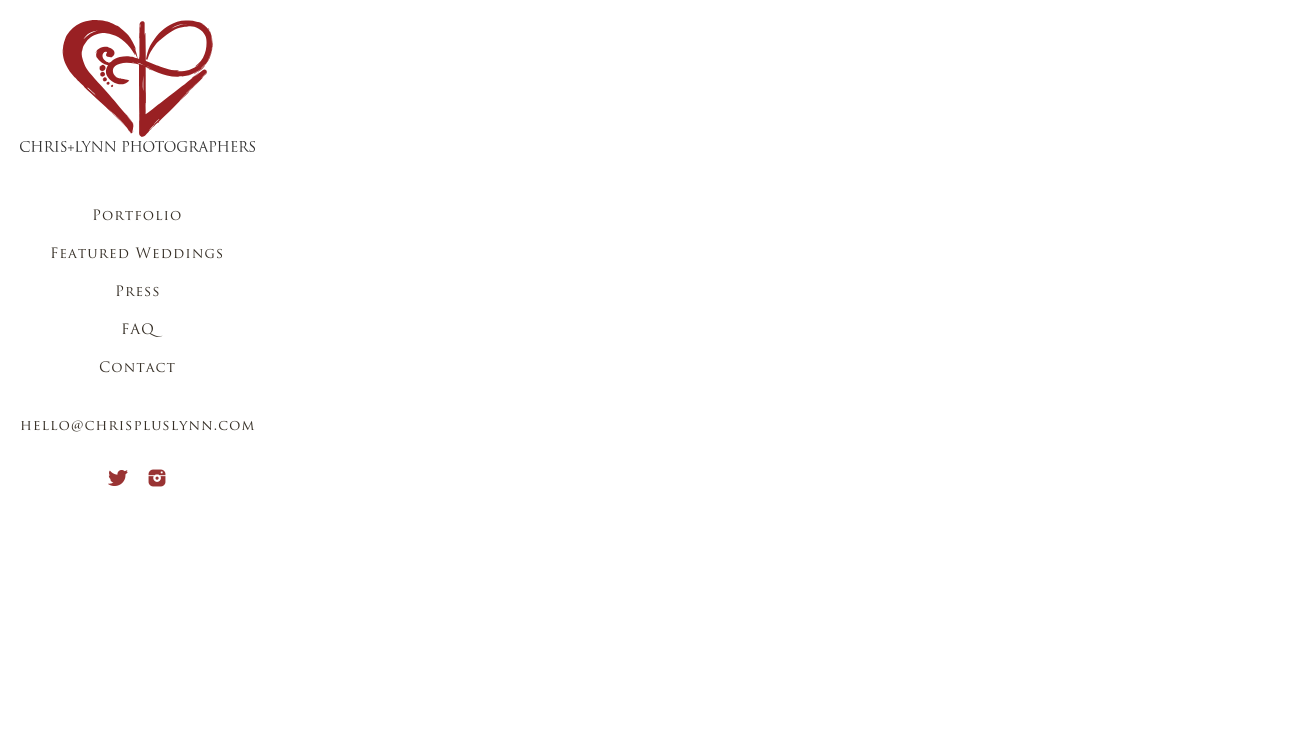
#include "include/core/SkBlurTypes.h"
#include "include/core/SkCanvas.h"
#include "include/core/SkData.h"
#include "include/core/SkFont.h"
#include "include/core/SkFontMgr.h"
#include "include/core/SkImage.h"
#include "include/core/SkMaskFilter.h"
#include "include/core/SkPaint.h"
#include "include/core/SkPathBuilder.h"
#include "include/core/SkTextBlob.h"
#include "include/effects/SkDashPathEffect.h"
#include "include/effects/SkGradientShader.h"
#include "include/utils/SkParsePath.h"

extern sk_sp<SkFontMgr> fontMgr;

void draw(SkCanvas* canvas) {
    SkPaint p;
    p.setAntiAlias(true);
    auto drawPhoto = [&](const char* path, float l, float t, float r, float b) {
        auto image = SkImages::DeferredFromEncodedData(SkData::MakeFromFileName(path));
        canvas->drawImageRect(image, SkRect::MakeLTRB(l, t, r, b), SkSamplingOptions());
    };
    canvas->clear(0xFFFFFFFF);
    drawPhoto("media/1.png", 20, 20, 255, 152);
    drawPhoto("media/2.png", 93, 209, 181, 221);
    drawPhoto("media/3.png", 51, 247, 222, 259);
    drawPhoto("media/4.png", 116, 285, 159, 297);
    drawPhoto("media/5.png", 122, 323, 163, 337);
    drawPhoto("media/6.png", 99, 361, 175, 373);
    drawPhoto("media/7.png", 21, 420, 255, 432);
    drawPhoto("media/8.png", 108, 470, 128, 486);
    drawPhoto("media/9.png", 148, 469, 166, 487);
}
